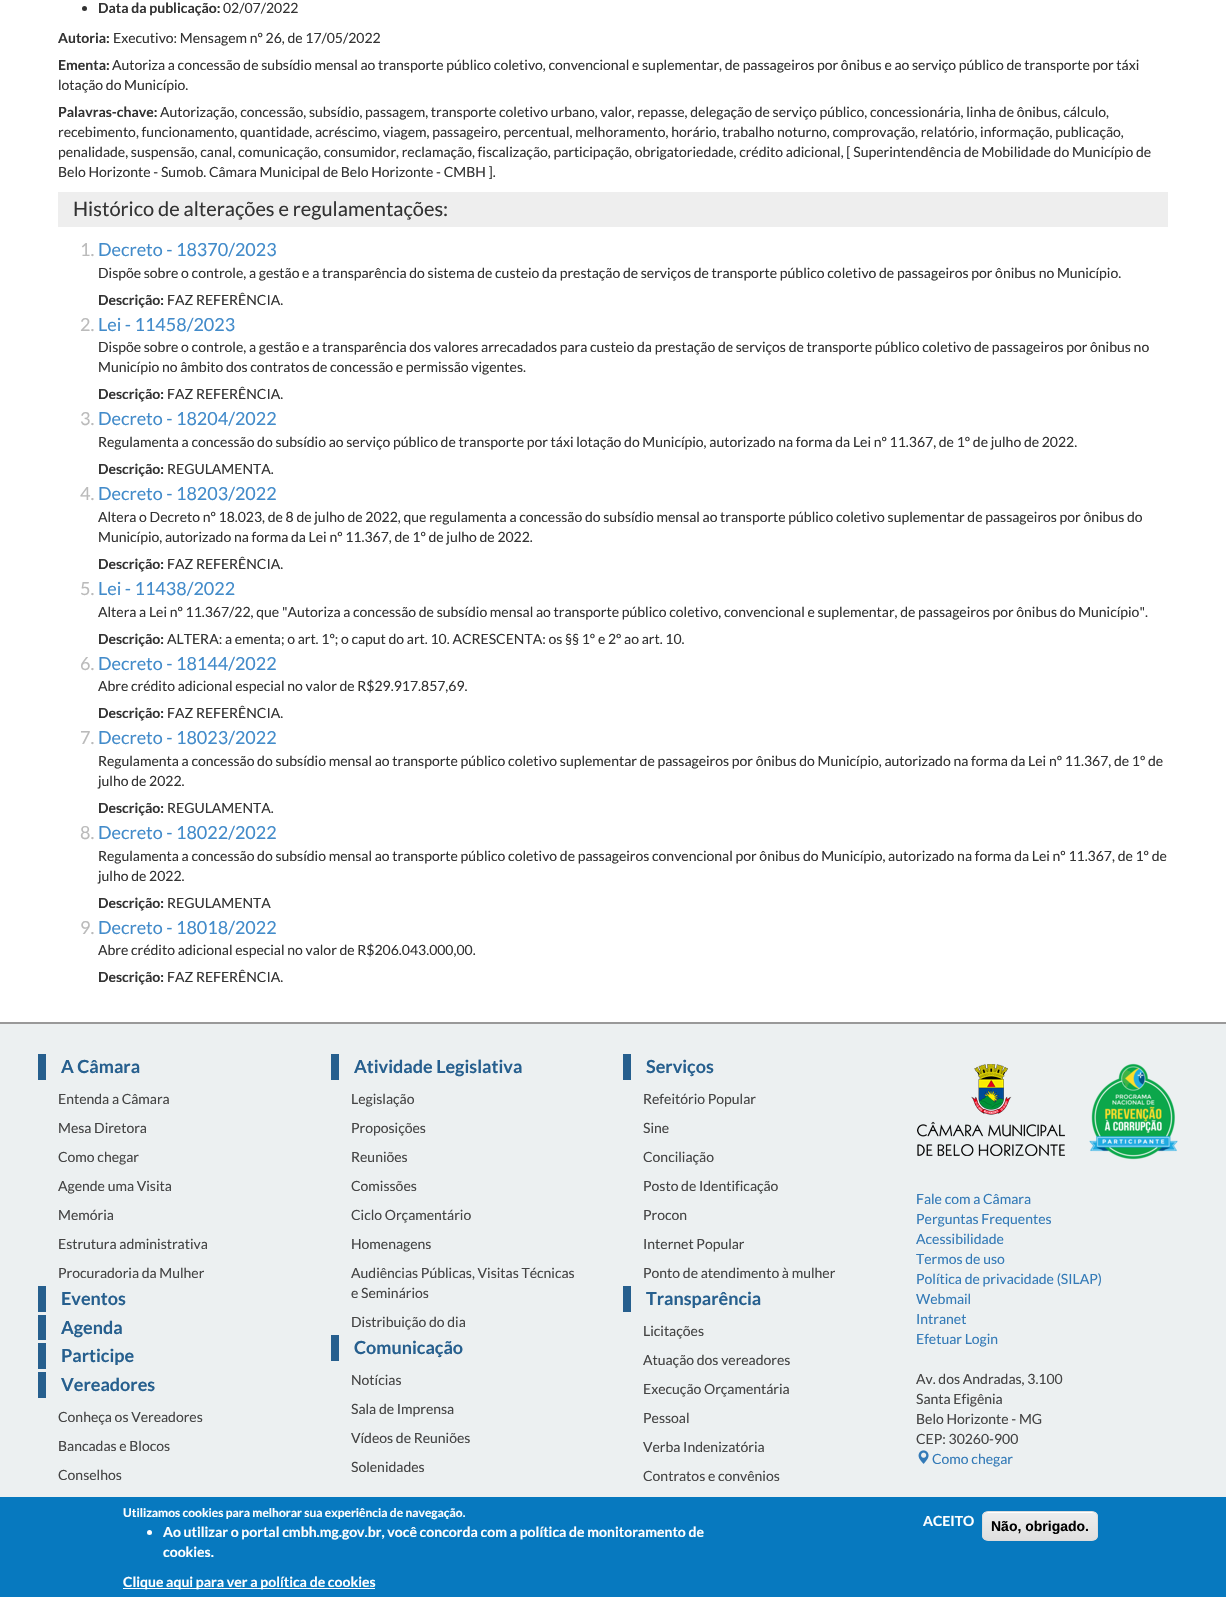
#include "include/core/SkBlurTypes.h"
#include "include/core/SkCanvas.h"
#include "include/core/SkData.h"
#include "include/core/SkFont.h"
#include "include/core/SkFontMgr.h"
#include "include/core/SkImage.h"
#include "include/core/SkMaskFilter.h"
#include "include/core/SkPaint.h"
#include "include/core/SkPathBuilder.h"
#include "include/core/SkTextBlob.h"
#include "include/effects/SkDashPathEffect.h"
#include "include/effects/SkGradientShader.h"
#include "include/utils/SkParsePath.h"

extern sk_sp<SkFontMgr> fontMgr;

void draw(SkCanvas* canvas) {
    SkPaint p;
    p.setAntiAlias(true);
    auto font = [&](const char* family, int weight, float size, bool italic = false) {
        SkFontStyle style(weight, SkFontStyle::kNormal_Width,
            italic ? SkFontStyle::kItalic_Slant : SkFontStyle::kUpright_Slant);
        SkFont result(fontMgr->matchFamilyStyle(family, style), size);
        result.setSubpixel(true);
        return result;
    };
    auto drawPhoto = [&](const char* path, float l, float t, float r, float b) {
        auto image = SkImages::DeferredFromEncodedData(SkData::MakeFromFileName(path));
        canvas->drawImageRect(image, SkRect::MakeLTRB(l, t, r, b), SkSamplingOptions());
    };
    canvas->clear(0xFFFFFFFF);
    p.setColor(0xFF333333);
    canvas->drawCircle(84.5f, 8.5f, 2.5f, p);
    auto font1 = font("Lato", 700, 14);
    canvas->drawString("Data da publicação:", 98, 13, font1, p);
    auto font2 = font("Lato", 400, 14);
    canvas->drawString("02/07/2022", 223, 13, font2, p);
    canvas->drawString("Autoria:", 58, 43, font1, p);
    canvas->drawString("Executivo: Mensagem nº 26, de 17/05/2022", 113, 43, font2, p);
    canvas->drawString("Ementa:", 58, 70, font1, p);
    canvas->drawString("Autoriza a concessão de subsídio mensal ao transporte público coletivo, convencional e suplementar, de passageiros por ônibus e ao serviço público de transporte por táxi", 112, 70, font2, p);
    canvas->drawString("lotação do Município.", 58, 90, font2, p);
    canvas->drawString("Palavras-chave:", 58, 117, font1, p);
    {
        const struct { const char* s; float x, y; } items[] = {
            {"Autorização, concessão, subsídio, passagem, transporte coletivo urbano, valor, repasse, delegação de serviço público, concessionária, linha de ônibus, cálculo,", 160, 117},
            {"recebimento, funcionamento, quantidade, acréscimo, viagem, passageiro, percentual, melhoramento, horário, trabalho noturno, comprovação, relatório, informação, publicação,", 58, 137},
            {"penalidade, suspensão, canal, comunicação, consumidor, reclamação, fiscalização, participação, obrigatoriedade, crédito adicional, [ Superintendência de Mobilidade do Município de", 58, 157},
            {"Belo Horizonte - Sumob. Câmara Municipal de Belo Horizonte - CMBH ].", 58, 177},
        };
        for (auto [s, x, y] : items) {
            canvas->drawString(s, x, y, font2, p);
        }
    }
    p.setColor(0xFFEEEEEE);
    canvas->drawRect(SkRect::MakeLTRB(58, 192, 1168, 227), p);
    auto font3 = font("Lato", 400, 20);
    p.setColor(0xFF333333);
    canvas->drawString("Histórico de alterações e regulamentações:", 73, 216, font3, p);
    auto font4 = font("Lato", 400, 18);
    p.setColor(0xFFBBBBBB);
    canvas->drawString("1.", 80, 256, font4, p);
    p.setColor(0xFF428BCA);
    canvas->drawString("Decreto - 18370/2023", 98, 256, font4, p);
    p.setColor(0xFF333333);
    canvas->drawString("Dispõe sobre o controle, a gestão e a transparência do sistema de custeio da prestação de serviços de transporte público coletivo de passageiros por ônibus no Município.", 98, 278, font2, p);
    canvas->drawString("Descrição:", 98, 305, font1, p);
    canvas->drawString("FAZ REFERÊNCIA.", 167, 305, font2, p);
    p.setColor(0xFFBBBBBB);
    canvas->drawString("2.", 80, 331, font4, p);
    p.setColor(0xFF428BCA);
    canvas->drawString("Lei - 11458/2023", 98, 331, font4, p);
    p.setColor(0xFF333333);
    canvas->drawString("Dispõe sobre o controle, a gestão e a transparência dos valores arrecadados para custeio da prestação de serviços de transporte público coletivo de passageiros por ônibus no", 98, 352, font2, p);
    canvas->drawString("Município no âmbito dos contratos de concessão e permissão vigentes.", 98, 372, font2, p);
    canvas->drawString("Descrição:", 98, 399, font1, p);
    canvas->drawString("FAZ REFERÊNCIA.", 167, 399, font2, p);
    p.setColor(0xFFBBBBBB);
    canvas->drawString("3.", 80, 425, font4, p);
    p.setColor(0xFF428BCA);
    canvas->drawString("Decreto - 18204/2022", 98, 425, font4, p);
    p.setColor(0xFF333333);
    canvas->drawString("Regulamenta a concessão do subsídio ao serviço público de transporte por táxi lotação do Município, autorizado na forma da Lei nº 11.367, de 1º de julho de 2022.", 98, 447, font2, p);
    canvas->drawString("Descrição:", 98, 474, font1, p);
    canvas->drawString("REGULAMENTA.", 167, 474, font2, p);
    p.setColor(0xFFBBBBBB);
    canvas->drawString("4.", 80, 500, font4, p);
    p.setColor(0xFF428BCA);
    canvas->drawString("Decreto - 18203/2022", 98, 500, font4, p);
    p.setColor(0xFF333333);
    canvas->drawString("Altera o Decreto nº 18.023, de 8 de julho de 2022, que regulamenta a concessão do subsídio mensal ao transporte público coletivo suplementar de passageiros por ônibus do", 98, 522, font2, p);
    canvas->drawString("Município, autorizado na forma da Lei nº 11.367, de 1º de julho de 2022.", 98, 542, font2, p);
    canvas->drawString("Descrição:", 98, 569, font1, p);
    canvas->drawString("FAZ REFERÊNCIA.", 167, 569, font2, p);
    p.setColor(0xFFBBBBBB);
    canvas->drawString("5.", 80, 595, font4, p);
    p.setColor(0xFF428BCA);
    canvas->drawString("Lei - 11438/2022", 98, 595, font4, p);
    p.setColor(0xFF333333);
    canvas->drawString("Altera a Lei nº 11.367/22, que \"Autoriza a concessão de subsídio mensal ao transporte público coletivo, convencional e suplementar, de passageiros por ônibus do Município\".", 98, 617, font2, p);
    canvas->drawString("Descrição:", 98, 644, font1, p);
    canvas->drawString("ALTERA: a ementa; o art. 1º; o caput do art. 10. ACRESCENTA: os §§ 1º e 2º ao art. 10.", 167, 644, font2, p);
    p.setColor(0xFFBBBBBB);
    canvas->drawString("6.", 80, 670, font4, p);
    p.setColor(0xFF428BCA);
    canvas->drawString("Decreto - 18144/2022", 98, 670, font4, p);
    p.setColor(0xFF333333);
    canvas->drawString("Abre crédito adicional especial no valor de R$29.917.857,69.", 98, 691, font2, p);
    canvas->drawString("Descrição:", 98, 718, font1, p);
    canvas->drawString("FAZ REFERÊNCIA.", 167, 718, font2, p);
    p.setColor(0xFFBBBBBB);
    canvas->drawString("7.", 80, 744, font4, p);
    p.setColor(0xFF428BCA);
    canvas->drawString("Decreto - 18023/2022", 98, 744, font4, p);
    p.setColor(0xFF333333);
    canvas->drawString("Regulamenta a concessão do subsídio mensal ao transporte público coletivo suplementar de passageiros por ônibus do Município, autorizado na forma da Lei nº 11.367, de 1º de", 98, 766, font2, p);
    canvas->drawString("julho de 2022.", 98, 786, font2, p);
    canvas->drawString("Descrição:", 98, 813, font1, p);
    canvas->drawString("REGULAMENTA.", 167, 813, font2, p);
    p.setColor(0xFFBBBBBB);
    canvas->drawString("8.", 80, 839, font4, p);
    p.setColor(0xFF428BCA);
    canvas->drawString("Decreto - 18022/2022", 98, 839, font4, p);
    p.setColor(0xFF333333);
    canvas->drawString("Regulamenta a concessão do subsídio mensal ao transporte público coletivo de passageiros convencional por ônibus do Município, autorizado na forma da Lei nº 11.367, de 1º de", 98, 861, font2, p);
    canvas->drawString("julho de 2022.", 98, 881, font2, p);
    canvas->drawString("Descrição:", 98, 908, font1, p);
    canvas->drawString("REGULAMENTA", 167, 908, font2, p);
    p.setColor(0xFFBBBBBB);
    canvas->drawString("9.", 80, 934, font4, p);
    p.setColor(0xFF428BCA);
    canvas->drawString("Decreto - 18018/2022", 98, 934, font4, p);
    p.setColor(0xFF333333);
    canvas->drawString("Abre crédito adicional especial no valor de R$206.043.000,00.", 98, 955, font2, p);
    canvas->drawString("Descrição:", 98, 982, font1, p);
    canvas->drawString("FAZ REFERÊNCIA.", 167, 982, font2, p);
    {
        const struct { float l, t, r, b; SkColor color; } items[] = {
            {0, 1024, 1226, 1497, 0xFFECF0F1},
            {0, 1022, 1226, 1024, 0xFF999999},
            {38, 1054, 46, 1080, 0xFF265F8E},
        };
        for (auto [l, t, r, b, color] : items) {
            p.setColor(color);
            canvas->drawRect(SkRect::MakeLTRB(l, t, r, b), p);
        }
    }
    auto font5 = font("Lato", 700, 18);
    canvas->drawString("A Câmara", 61, 1073, font5, p);
    p.setColor(0xFF444444);
    {
        const struct { const char* s; float x, y; } items[] = {
            {"Entenda a Câmara", 58, 1104},
            {"Mesa Diretora", 58, 1133},
            {"Como chegar", 58, 1162},
            {"Agende uma Visita", 58, 1191},
            {"Memória", 58, 1220},
            {"Estrutura administrativa", 58, 1249},
            {"Procuradoria da Mulher", 58, 1278},
        };
        for (auto [s, x, y] : items) {
            canvas->drawString(s, x, y, font2, p);
        }
    }
    p.setColor(0xFF265F8E);
    canvas->drawRect(SkRect::MakeLTRB(38, 1286, 46, 1312), p);
    canvas->drawString("Eventos", 61, 1305, font5, p);
    canvas->drawRect(SkRect::MakeLTRB(38, 1315, 46, 1340), p);
    canvas->drawString("Agenda", 61, 1334, font5, p);
    canvas->drawRect(SkRect::MakeLTRB(38, 1343, 46, 1369), p);
    canvas->drawString("Participe", 61, 1362, font5, p);
    canvas->drawRect(SkRect::MakeLTRB(38, 1372, 46, 1398), p);
    canvas->drawString("Vereadores", 61, 1391, font5, p);
    p.setColor(0xFF444444);
    {
        const struct { const char* s; float x, y; } items[] = {
            {"Conheça os Vereadores", 58, 1422},
            {"Bancadas e Blocos", 58, 1451},
            {"Conselhos", 58, 1480},
        };
        for (auto [s, x, y] : items) {
            canvas->drawString(s, x, y, font2, p);
        }
    }
    p.setColor(0xFF265F8E);
    canvas->drawRect(SkRect::MakeLTRB(331, 1054, 339, 1080), p);
    canvas->drawString("Atividade Legislativa", 354, 1073, font5, p);
    p.setColor(0xFF444444);
    {
        const struct { const char* s; float x, y; } items[] = {
            {"Legislação", 351, 1104},
            {"Proposições", 351, 1133},
            {"Reuniões", 351, 1162},
            {"Comissões", 351, 1191},
            {"Ciclo Orçamentário", 351, 1220},
            {"Homenagens", 351, 1249},
            {"Audiências Públicas, Visitas Técnicas", 351, 1278},
            {"e Seminários", 351, 1298},
            {"Distribuição do dia", 351, 1327},
        };
        for (auto [s, x, y] : items) {
            canvas->drawString(s, x, y, font2, p);
        }
    }
    p.setColor(0xFF265F8E);
    canvas->drawRect(SkRect::MakeLTRB(331, 1335, 339, 1361), p);
    canvas->drawString("Comunicação", 354, 1354, font5, p);
    p.setColor(0xFF444444);
    {
        const struct { const char* s; float x, y; } items[] = {
            {"Notícias", 351, 1385},
            {"Sala de Imprensa", 351, 1414},
            {"Vídeos de Reuniões", 351, 1443},
            {"Solenidades", 351, 1472},
        };
        for (auto [s, x, y] : items) {
            canvas->drawString(s, x, y, font2, p);
        }
    }
    p.setColor(0xFF265F8E);
    canvas->drawRect(SkRect::MakeLTRB(623, 1054, 631, 1080), p);
    canvas->drawString("Serviços", 646, 1073, font5, p);
    p.setColor(0xFF444444);
    {
        const struct { const char* s; float x, y; } items[] = {
            {"Refeitório Popular", 643, 1104},
            {"Sine", 643, 1133},
            {"Conciliação", 643, 1162},
            {"Posto de Identificação", 643, 1191},
            {"Procon", 643, 1220},
            {"Internet Popular", 643, 1249},
            {"Ponto de atendimento à mulher", 643, 1278},
        };
        for (auto [s, x, y] : items) {
            canvas->drawString(s, x, y, font2, p);
        }
    }
    p.setColor(0xFF265F8E);
    canvas->drawRect(SkRect::MakeLTRB(623, 1286, 631, 1312), p);
    canvas->drawString("Transparência", 646, 1305, font5, p);
    p.setColor(0xFF444444);
    {
        const struct { const char* s; float x, y; } items[] = {
            {"Licitações", 643, 1336},
            {"Atuação dos vereadores", 643, 1365},
            {"Execução Orçamentária", 643, 1394},
            {"Pessoal", 643, 1423},
            {"Verba Indenizatória", 643, 1452},
            {"Contratos e convênios", 643, 1481},
        };
        for (auto [s, x, y] : items) {
            canvas->drawString(s, x, y, font2, p);
        }
    }
    drawPhoto("media/1.png", 917, 1064, 1065, 1156);
    drawPhoto("media/2.png", 1089, 1063, 1178, 1160);
    p.setColor(0xFF337AB7);
    {
        const struct { const char* s; float x, y; } items[] = {
            {"Fale com a Câmara", 916, 1204},
            {"Perguntas Frequentes", 916, 1224},
            {"Acessibilidade", 916, 1244},
            {"Termos de uso", 916, 1264},
            {"Política de privacidade (SILAP)", 916, 1284},
            {"Webmail", 916, 1304},
            {"Intranet", 916, 1324},
            {"Efetuar Login", 916, 1344},
        };
        for (auto [s, x, y] : items) {
            canvas->drawString(s, x, y, font2, p);
        }
    }
    p.setColor(0xFF444444);
    {
        const struct { const char* s; float x, y; } items[] = {
            {"Av. dos Andradas, 3.100", 916, 1384},
            {"Santa Efigênia", 916, 1404},
            {"Belo Horizonte - MG", 916, 1424},
            {"CEP: 30260-900", 916, 1444},
        };
        for (auto [s, x, y] : items) {
            canvas->drawString(s, x, y, font2, p);
        }
    }
    drawPhoto("media/3.png", 918, 1450, 929, 1464);
    p.setColor(0xFF337AB7);
    canvas->drawString("Como chegar", 932, 1464, font2, p);
    p.setColor(0xFF0779BF);
    canvas->drawRect(SkRect::MakeLTRB(0, 1497, 1226, 1597), p);
    auto font6 = font("Lato", 700, 12);
    p.setColor(0xFFFFFFFF);
    canvas->drawString("Utilizamos cookies para melhorar sua experiência de navegação.", 123, 1517, font6, p);
    canvas->drawCircle(149.5f, 1532.5f, 2.5f, p);
    canvas->drawString("Ao utilizar o portal cmbh.mg.gov.br, você concorda com a política de monitoramento de", 163, 1537, font1, p);
    canvas->drawString("cookies.", 163, 1557, font1, p);
    canvas->drawRect(SkRect::MakeLTRB(123, 1588, 375, 1589), p);
    canvas->drawString("Clique aqui para ver a política de cookies", 123, 1587, font1, p);
    canvas->drawString("ACEITO", 923, 1526, font1, p);
    canvas->save();
    canvas->clipPath(SkPathBuilder().moveTo(988, 1511).lineTo(1092, 1511).cubicTo(1095.5f, 1511, 1098, 1513.5f, 1098, 1517).lineTo(1098, 1535).cubicTo(1098, 1538.5f, 1095.5f, 1541, 1092, 1541).lineTo(988, 1541).cubicTo(984.5f, 1541, 982, 1538.5f, 982, 1535).lineTo(982, 1517).cubicTo(982, 1513.5f, 984.5f, 1511, 988, 1511).close().detach(), true);
    {
        const SkColor colors[] = {0xFFEDEDED, 0xFFDFDFDF};
        const float stops[] = {0.05f, 1};
        const SkPoint ends[] = {{1040, 1512}, {1040, 1540}};
        p.setShader(SkGradientShader::MakeLinear(ends, colors, stops, 2, SkTileMode::kClamp));
        p.setAlpha(255);
    }
    canvas->drawRect(SkRect::MakeLTRB(982, 1512, 1098, 1540), p);
    canvas->restore();
    p.setShader(nullptr);
    p.setColor(0xFFFFFFFF);
    canvas->drawPath(SkPathBuilder().moveTo(988, 1513).lineTo(1092, 1513).cubicTo(1095, 1513, 1097, 1515, 1097, 1518).cubicTo(1097, 1508, 1079, 1512, 1075, 1512).lineTo(1005, 1512).cubicTo(1001, 1512, 983, 1508, 983, 1518).cubicTo(983, 1515, 985, 1513, 988, 1513).close().detach(), p);
    p.setStyle(SkPaint::kStroke_Style);
    p.setStrokeWidth(1);
    p.setColor(0xFFDCDCDC);
    canvas->drawRoundRect(SkRect::MakeLTRB(982.5f, 1511.5f, 1097.5f, 1540.5f), 5.5f, 5.5f, p);
    auto font7 = font("Liberation Sans", 700, 14);
    p.setStyle(SkPaint::kFill_Style);
    p.setColor(0xFF000000);
    canvas->drawString("Não, obrigado.", 991, 1531, font7, p);
}
